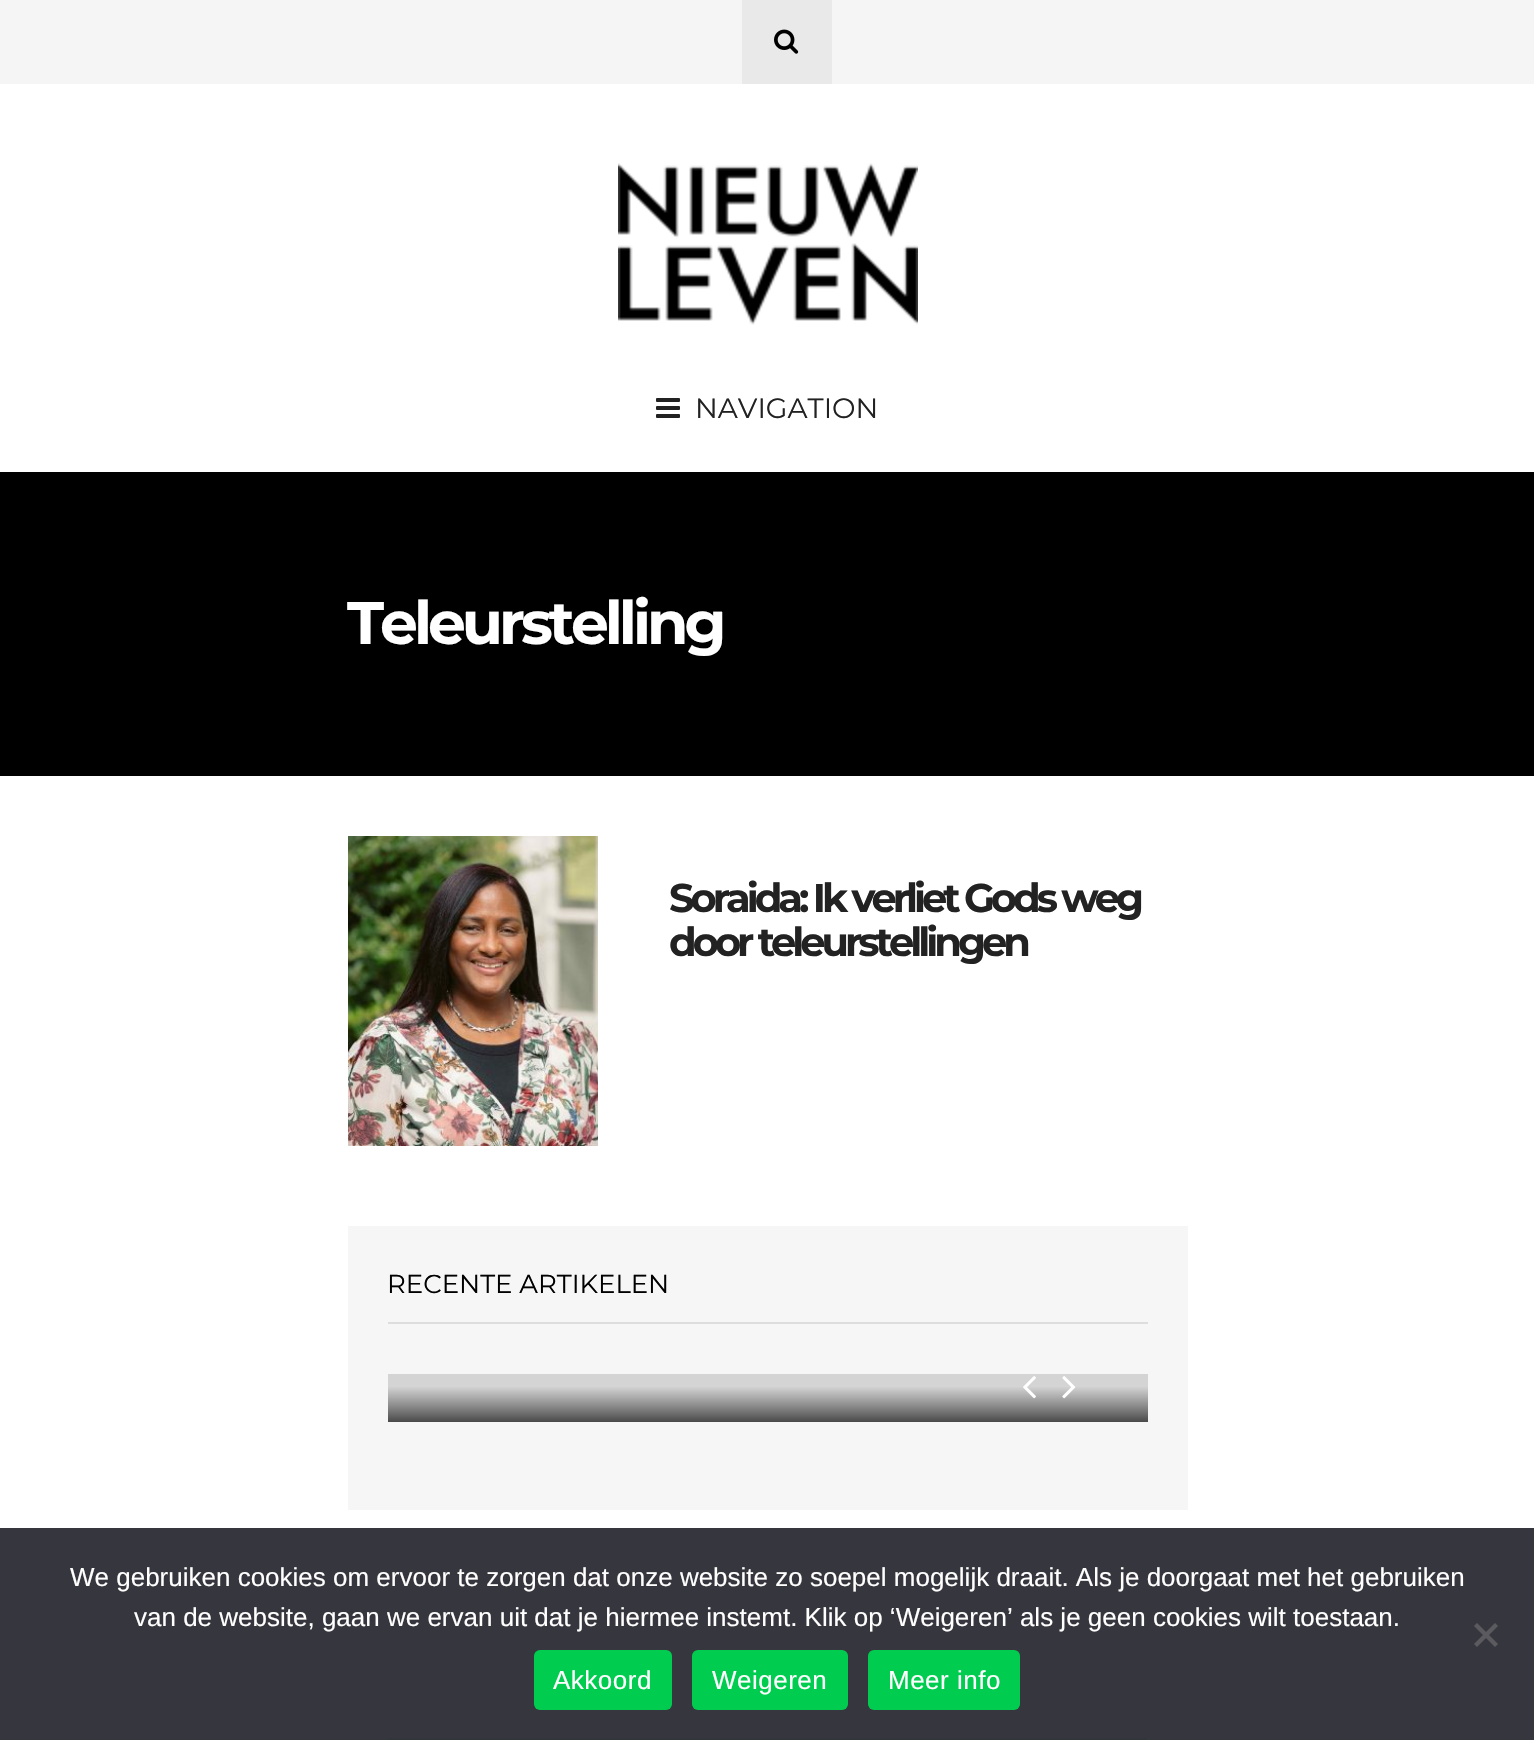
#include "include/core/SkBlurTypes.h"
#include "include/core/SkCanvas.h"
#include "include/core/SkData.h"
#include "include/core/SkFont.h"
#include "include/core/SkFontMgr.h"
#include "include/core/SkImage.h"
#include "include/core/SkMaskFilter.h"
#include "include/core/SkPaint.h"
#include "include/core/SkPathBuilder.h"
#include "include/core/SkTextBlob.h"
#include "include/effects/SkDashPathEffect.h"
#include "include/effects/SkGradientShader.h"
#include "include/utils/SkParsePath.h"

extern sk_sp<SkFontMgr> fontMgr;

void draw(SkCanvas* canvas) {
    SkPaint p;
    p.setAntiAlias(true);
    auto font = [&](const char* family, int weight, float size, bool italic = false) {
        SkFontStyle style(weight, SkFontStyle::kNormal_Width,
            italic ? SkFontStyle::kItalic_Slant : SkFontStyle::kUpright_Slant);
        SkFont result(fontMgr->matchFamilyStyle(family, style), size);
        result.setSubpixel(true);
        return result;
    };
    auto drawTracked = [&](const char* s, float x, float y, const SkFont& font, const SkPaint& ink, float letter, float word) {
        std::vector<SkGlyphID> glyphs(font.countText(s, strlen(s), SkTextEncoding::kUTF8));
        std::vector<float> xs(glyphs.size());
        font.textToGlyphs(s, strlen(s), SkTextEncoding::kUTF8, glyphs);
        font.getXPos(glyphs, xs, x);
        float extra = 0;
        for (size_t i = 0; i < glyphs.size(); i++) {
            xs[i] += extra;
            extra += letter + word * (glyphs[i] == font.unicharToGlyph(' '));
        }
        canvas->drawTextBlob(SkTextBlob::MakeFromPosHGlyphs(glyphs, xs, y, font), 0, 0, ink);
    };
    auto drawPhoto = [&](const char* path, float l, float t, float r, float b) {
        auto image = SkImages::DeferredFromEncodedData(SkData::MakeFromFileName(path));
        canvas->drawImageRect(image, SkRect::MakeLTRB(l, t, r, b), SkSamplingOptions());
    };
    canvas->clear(0xFFFFFFFF);
    {
        const struct { float l, t, r, b; SkColor color; } items[] = {
            {0, 1528, 1534, 1740, 0xFF36363E},
            {0, 0, 1534, 84, 0xFFF5F5F5},
            {742, 0, 832, 84, 0xFFE9E9E9},
        };
        for (auto [l, t, r, b, color] : items) {
            p.setColor(color);
            canvas->drawRect(SkRect::MakeLTRB(l, t, r, b), p);
        }
    }
    drawPhoto("media/1.png", 774, 29, 799, 54);
    drawPhoto("media/2.png", 618, 163, 918, 325);
    drawPhoto("media/3.png", 656, 398, 680, 418);
    auto font1 = font("Montserrat", 400, 28);
    p.setColor(0xFF222222);
    canvas->drawString("NAVIGATION", 695, 418, font1, p);
    p.setColor(0xFF000000);
    canvas->drawRect(SkRect::MakeLTRB(0, 472, 1534, 776), p);
    auto font2 = font("Montserrat", 700, 60);
    p.setColor(0xFFFFFFFF);
    drawTracked("Teleurstelling", 347, 644, font2, p, -4, 0);
    drawPhoto("media/4.png", 348, 836, 598, 1146);
    auto font3 = font("Montserrat", 700, 40);
    p.setColor(0xFF222222);
    drawTracked("Soraida: Ik verliet Gods weg", 669, 912, font3, p, -4, 0);
    drawTracked("door teleurstellingen", 669, 956, font3, p, -4, 0);
    p.setColor(0xFFF6F6F6);
    canvas->drawRect(SkRect::MakeLTRB(348, 1226, 1188, 1510), p);
    p.setColor(0xFFDDDDDD);
    canvas->drawRect(SkRect::MakeLTRB(388, 1322, 1148, 1324), p);
    auto font4 = font("Montserrat", 400, 26);
    p.setColor(0xFF000000);
    canvas->drawString("RECENTE ARTIKELEN", 387, 1293, font4, p);
    {
        const SkColor colors[] = {0xFFD4D4D4, 0xFFD4D4D4, 0xFF858585, 0xFF4A4A4A};
        const float stops[] = {0.01f, 0.26f, 0.7f, 1};
        const SkPoint ends[] = {{768, 1374}, {768, 1422}};
        p.setShader(SkGradientShader::MakeLinear(ends, colors, stops, 4, SkTileMode::kClamp));
        p.setAlpha(255);
    }
    canvas->drawRect(SkRect::MakeLTRB(388, 1374, 1148, 1422), p);
    drawPhoto("media/5.png", 1023, 1376, 1036, 1399);
    drawPhoto("media/6.png", 1062, 1376, 1076, 1399);
    drawPhoto("media/7.png", 388, 1738, 1146, 1740);
    auto font5 = font("Liberation Sans", 400, 26);
    p.setShader(nullptr);
    p.setColor(0xFFFFFFFF);
    canvas->drawString("We gebruiken cookies om ervoor te zorgen dat onze website zo soepel mogelijk draait. Als je doorgaat met het gebruiken", 70, 1586, font5, p);
    canvas->drawString("van de website, gaan we ervan uit dat je hiermee instemt. Klik op ‘Weigeren’ als je geen cookies wilt toestaan.", 134, 1626, font5, p);
    p.setColor(0xFF5B5B5F);
    canvas->drawPath(SkPathBuilder().moveTo(1495, 1623).lineTo(1498, 1626).lineTo(1477, 1647).lineTo(1474, 1644).close().detach(), p);
    canvas->drawPath(SkPathBuilder().moveTo(1474, 1626).lineTo(1477, 1623).lineTo(1498, 1644).lineTo(1495, 1647).close().detach(), p);
    p.setColor(0xFF00CD50);
    canvas->drawRoundRect(SkRect::MakeLTRB(534, 1650, 672, 1710), 6, 6, p);
    p.setColor(0xFFFFFFFF);
    drawTracked("Akkoord", 553, 1689, font5, p, 0.5f, 0);
    p.setColor(0xFF00CD50);
    canvas->drawRoundRect(SkRect::MakeLTRB(692, 1650, 848, 1710), 6, 6, p);
    p.setColor(0xFFFFFFFF);
    drawTracked("Weigeren", 712, 1689, font5, p, 0.5f, 0);
    p.setColor(0xFF00CD50);
    canvas->drawRoundRect(SkRect::MakeLTRB(868, 1650, 1020, 1710), 6, 6, p);
    p.setColor(0xFFFFFFFF);
    drawTracked("Meer info", 888, 1689, font5, p, 0.5f, 0);
}
